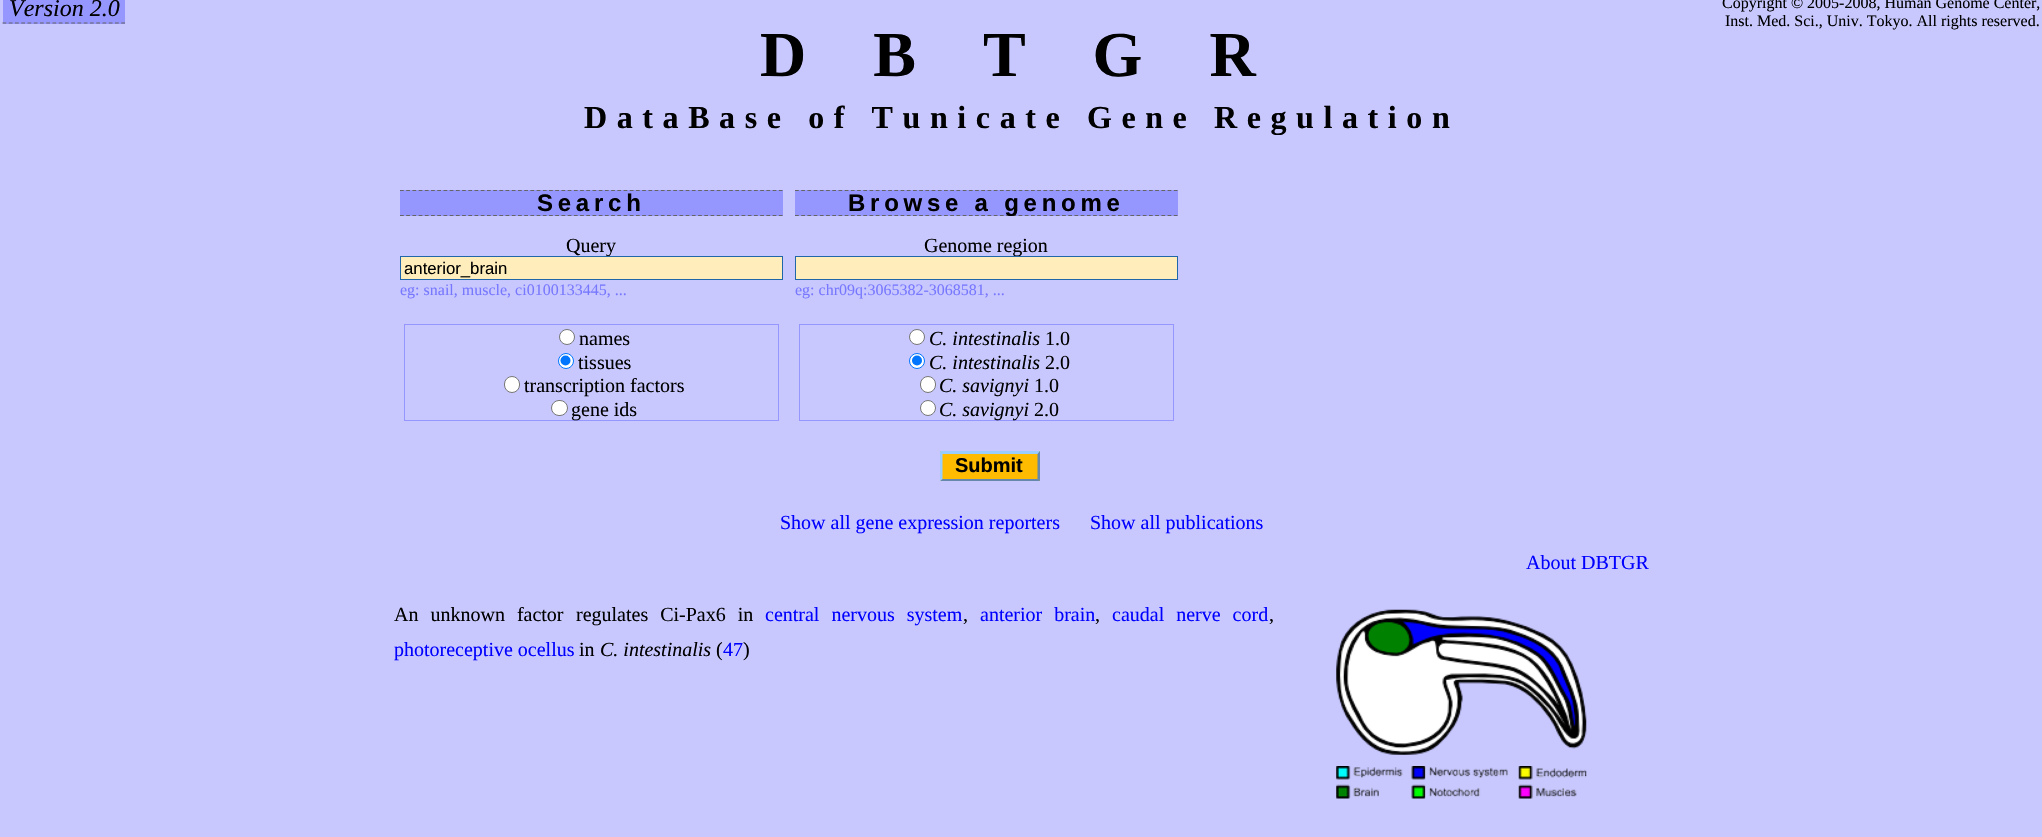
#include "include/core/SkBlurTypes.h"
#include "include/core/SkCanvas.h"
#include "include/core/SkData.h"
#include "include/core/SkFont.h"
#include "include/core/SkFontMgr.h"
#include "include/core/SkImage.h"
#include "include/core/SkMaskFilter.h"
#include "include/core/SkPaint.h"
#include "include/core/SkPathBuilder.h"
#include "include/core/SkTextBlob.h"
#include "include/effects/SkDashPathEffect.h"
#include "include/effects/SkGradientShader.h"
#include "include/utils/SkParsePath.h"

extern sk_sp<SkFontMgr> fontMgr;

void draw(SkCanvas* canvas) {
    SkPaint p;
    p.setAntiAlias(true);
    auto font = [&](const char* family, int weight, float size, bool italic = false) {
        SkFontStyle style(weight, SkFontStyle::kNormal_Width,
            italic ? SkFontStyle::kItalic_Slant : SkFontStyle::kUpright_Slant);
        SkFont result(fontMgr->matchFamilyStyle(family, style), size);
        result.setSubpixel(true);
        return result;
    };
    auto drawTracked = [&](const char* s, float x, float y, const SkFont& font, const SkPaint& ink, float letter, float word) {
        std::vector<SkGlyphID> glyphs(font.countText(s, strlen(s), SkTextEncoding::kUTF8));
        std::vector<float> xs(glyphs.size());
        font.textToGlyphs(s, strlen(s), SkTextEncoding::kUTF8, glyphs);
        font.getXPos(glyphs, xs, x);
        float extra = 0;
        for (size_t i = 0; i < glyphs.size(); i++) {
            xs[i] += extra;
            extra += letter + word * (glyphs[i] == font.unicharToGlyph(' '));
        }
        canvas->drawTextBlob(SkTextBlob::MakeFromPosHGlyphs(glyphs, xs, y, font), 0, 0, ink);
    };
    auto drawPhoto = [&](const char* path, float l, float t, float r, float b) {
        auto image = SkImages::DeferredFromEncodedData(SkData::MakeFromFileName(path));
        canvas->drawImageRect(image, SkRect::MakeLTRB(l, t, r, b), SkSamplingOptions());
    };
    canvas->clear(0xFFC8C8FF);
    p.setColor(0xFF9696FF);
    canvas->drawRect(SkRect::MakeLTRB(3, 0, 125, 24), p);
    p.setStyle(SkPaint::kStroke_Style);
    p.setStrokeWidth(1.2f);
    p.setColor(0xFF646464);
    p.setPathEffect(SkDashPathEffect::Make({{3.75f, 2.5f}}, 0));
    canvas->drawPath(SkPathBuilder().moveTo(2.5f, 23).lineTo(125, 23).detach(), p);
    p.setPathEffect(nullptr);
    auto font1 = font("Liberation Serif", 400, 24, true);
    p.setStyle(SkPaint::kFill_Style);
    p.setColor(0xFF000000);
    canvas->drawString("Version 2.0", 9, 16, font1, p);
    auto font2 = font("Liberation Serif", 400, 16);
    canvas->drawString("Copyright © 2005-2008, Human Genome Center,", 1722, 8, font2, p);
    canvas->drawString("Inst. Med. Sci., Univ. Tokyo. All rights reserved.", 1725, 26, font2, p);
    auto font3 = font("Liberation Serif", 700, 64);
    drawTracked("D B T G R", 760, 76, font3, p, 25.5f, 0);
    auto font4 = font("Liberation Serif", 700, 32);
    drawTracked("DataBase of Tunicate Gene Regulation", 584, 128, font4, p, 9.6f, 0);
    p.setColor(0xFF9696FF);
    canvas->drawRect(SkRect::MakeLTRB(400, 190, 783, 216), p);
    p.setStyle(SkPaint::kStroke_Style);
    p.setColor(0xFF646464);
    p.setPathEffect(SkDashPathEffect::Make({{3.75f, 2.46f}}, 0));
    canvas->drawPath(SkPathBuilder().moveTo(400, 190.5f).lineTo(782.5f, 190.5f).detach(), p);
    p.setPathEffect(nullptr);
    p.setPathEffect(SkDashPathEffect::Make({{3.75f, 2.46f}}, 0));
    canvas->drawPath(SkPathBuilder().moveTo(400, 215.5f).lineTo(782.5f, 215.5f).detach(), p);
    p.setPathEffect(nullptr);
    auto font5 = font("Liberation Sans", 700, 24);
    p.setStyle(SkPaint::kFill_Style);
    p.setColor(0xFF000000);
    drawTracked("Search", 537, 211, font5, p, 4.75f, 0);
    auto font6 = font("Liberation Serif", 400, 20);
    canvas->drawString("Query", 566, 252, font6, p);
    p.setColor(0xFFFFEEBB);
    canvas->drawRect(SkRect::MakeLTRB(400.5f, 256.5f, 782.5f, 279.5f), p);
    p.setStyle(SkPaint::kStroke_Style);
    p.setStrokeWidth(1);
    p.setColor(0xFF2266AA);
    canvas->drawRect(SkRect::MakeLTRB(400.5f, 256.5f, 782.5f, 279.5f), p);
    auto font7 = font("Liberation Sans", 400, 16.75f);
    p.setStyle(SkPaint::kFill_Style);
    p.setColor(0xFF000000);
    canvas->drawString("anterior_brain", 404, 274, font7, p);
    p.setColor(0xFF7878FF);
    canvas->drawString("eg: snail, muscle, ci0100133445, ...", 400, 295, font2, p);
    p.setStyle(SkPaint::kStroke_Style);
    p.setColor(0xFF9696FF);
    canvas->drawRect(SkRect::MakeLTRB(404.5f, 324.5f, 778.5f, 420.5f), p);
    p.setStyle(SkPaint::kFill_Style);
    p.setColor(0xFFFFFFFF);
    canvas->drawCircle(567, 337, 7.5f, p);
    p.setStyle(SkPaint::kStroke_Style);
    p.setColor(0xFF767676);
    canvas->drawCircle(567, 337, 7.5f, p);
    p.setStyle(SkPaint::kFill_Style);
    p.setColor(0xFF000000);
    canvas->drawString("names", 579, 345, font6, p);
    p.setColor(0xFFFFFFFF);
    canvas->drawCircle(566, 361, 7.5f, p);
    p.setStyle(SkPaint::kStroke_Style);
    p.setColor(0xFF0075FF);
    canvas->drawCircle(566, 361, 7.5f, p);
    p.setStyle(SkPaint::kFill_Style);
    canvas->drawCircle(565.5f, 360.5f, 5, p);
    p.setColor(0xFF000000);
    canvas->drawString("tissues", 578, 369, font6, p);
    p.setColor(0xFFFFFFFF);
    canvas->drawRoundRect(SkRect::MakeLTRB(504.5f, 376.5f, 519.5f, 392.5f), 7.5f, 7.5f, p);
    p.setStyle(SkPaint::kStroke_Style);
    p.setColor(0xFF767676);
    canvas->drawRoundRect(SkRect::MakeLTRB(504.5f, 376.5f, 519.5f, 392.5f), 7.5f, 7.5f, p);
    p.setStyle(SkPaint::kFill_Style);
    p.setColor(0xFF000000);
    canvas->drawString("transcription factors", 524, 392, font6, p);
    p.setColor(0xFFFFFFFF);
    canvas->drawRoundRect(SkRect::MakeLTRB(551.5f, 400.5f, 567.5f, 415.5f), 7.5f, 7.5f, p);
    p.setStyle(SkPaint::kStroke_Style);
    p.setColor(0xFF767676);
    canvas->drawRoundRect(SkRect::MakeLTRB(551.5f, 400.5f, 567.5f, 415.5f), 7.5f, 7.5f, p);
    p.setStyle(SkPaint::kFill_Style);
    p.setColor(0xFF000000);
    canvas->drawString("gene ids", 571, 416, font6, p);
    p.setColor(0xFF9696FF);
    canvas->drawRect(SkRect::MakeLTRB(795, 190, 1178, 216), p);
    p.setStyle(SkPaint::kStroke_Style);
    p.setStrokeWidth(1.2f);
    p.setColor(0xFF646464);
    p.setPathEffect(SkDashPathEffect::Make({{3.75f, 2.46f}}, 0));
    canvas->drawPath(SkPathBuilder().moveTo(795, 190.5f).lineTo(1177.5f, 190.5f).detach(), p);
    p.setPathEffect(nullptr);
    p.setPathEffect(SkDashPathEffect::Make({{3.75f, 2.46f}}, 0));
    canvas->drawPath(SkPathBuilder().moveTo(795, 215.5f).lineTo(1177.5f, 215.5f).detach(), p);
    p.setPathEffect(nullptr);
    p.setStyle(SkPaint::kFill_Style);
    p.setColor(0xFF000000);
    drawTracked("Browse a genome", 848, 211, font5, p, 4.75f, 0);
    canvas->drawString("Genome region", 924, 252, font6, p);
    p.setColor(0xFFFFEEBB);
    canvas->drawRect(SkRect::MakeLTRB(795.5f, 256.5f, 1177.5f, 279.5f), p);
    p.setStyle(SkPaint::kStroke_Style);
    p.setStrokeWidth(1);
    p.setColor(0xFF2266AA);
    canvas->drawRect(SkRect::MakeLTRB(795.5f, 256.5f, 1177.5f, 279.5f), p);
    p.setStyle(SkPaint::kFill_Style);
    p.setColor(0xFF7878FF);
    canvas->drawString("eg: chr09q:3065382-3068581, ...", 795, 295, font2, p);
    p.setStyle(SkPaint::kStroke_Style);
    p.setColor(0xFF9696FF);
    canvas->drawRect(SkRect::MakeLTRB(799.5f, 324.5f, 1173.5f, 420.5f), p);
    p.setStyle(SkPaint::kFill_Style);
    p.setColor(0xFFFFFFFF);
    canvas->drawCircle(917, 337, 7.5f, p);
    p.setStyle(SkPaint::kStroke_Style);
    p.setColor(0xFF767676);
    canvas->drawCircle(917, 337, 7.5f, p);
    auto font8 = font("Liberation Serif", 400, 20, true);
    p.setStyle(SkPaint::kFill_Style);
    p.setColor(0xFF000000);
    canvas->drawString("C. intestinalis", 929, 345, font8, p);
    canvas->drawString("1.0", 1045, 345, font6, p);
    p.setColor(0xFFFFFFFF);
    canvas->drawCircle(917, 361, 7.5f, p);
    p.setStyle(SkPaint::kStroke_Style);
    p.setColor(0xFF0075FF);
    canvas->drawCircle(917, 361, 7.5f, p);
    p.setStyle(SkPaint::kFill_Style);
    canvas->drawCircle(917, 360.5f, 5, p);
    p.setColor(0xFF000000);
    canvas->drawString("C. intestinalis", 929, 369, font8, p);
    canvas->drawString("2.0", 1045, 369, font6, p);
    p.setColor(0xFFFFFFFF);
    canvas->drawRoundRect(SkRect::MakeLTRB(920.5f, 376.5f, 935.5f, 392.5f), 7.5f, 7.5f, p);
    p.setStyle(SkPaint::kStroke_Style);
    p.setColor(0xFF767676);
    canvas->drawRoundRect(SkRect::MakeLTRB(920.5f, 376.5f, 935.5f, 392.5f), 7.5f, 7.5f, p);
    p.setStyle(SkPaint::kFill_Style);
    p.setColor(0xFF000000);
    canvas->drawString("C. savignyi", 939, 392, font8, p);
    canvas->drawString("1.0", 1034, 392, font6, p);
    p.setColor(0xFFFFFFFF);
    canvas->drawCircle(928, 408, 7.5f, p);
    p.setStyle(SkPaint::kStroke_Style);
    p.setColor(0xFF767676);
    canvas->drawCircle(928, 408, 7.5f, p);
    p.setStyle(SkPaint::kFill_Style);
    p.setColor(0xFF000000);
    canvas->drawString("C. savignyi", 939, 416, font8, p);
    canvas->drawString("2.0", 1034, 416, font6, p);
    p.setColor(0xFFFFBB00);
    canvas->drawRect(SkRect::MakeLTRB(940, 451, 1040, 481), p);
    p.setColor(0xFF99CCFF);
    canvas->drawPath(SkPathBuilder().moveTo(940, 451).lineTo(1040, 451).lineTo(1038, 454).lineTo(942, 454).close().detach(), p);
    p.setColor(0xFF6688AA);
    canvas->drawPath(SkPathBuilder().moveTo(1040, 451).lineTo(1040, 481).lineTo(1037.5f, 479).lineTo(1037.5f, 454).close().detach(), p);
    canvas->drawPath(SkPathBuilder().moveTo(1040, 481).lineTo(940, 481).lineTo(942, 479).lineTo(1038, 479).close().detach(), p);
    p.setColor(0xFF99CCFF);
    canvas->drawPath(SkPathBuilder().moveTo(940, 481).lineTo(940, 451).lineTo(942.5f, 454).lineTo(942.5f, 479).close().detach(), p);
    auto font9 = font("Liberation Sans", 700, 20);
    p.setColor(0xFF000000);
    canvas->drawString("Submit", 955, 472, font9, p);
    p.setColor(0xFF0000FF);
    {
        const struct { const char* s; float x, y; } items[] = {
            {"Show all gene expression reporters", 780, 529},
            {"Show all publications", 1090, 529},
            {"About DBTGR", 1526, 569},
        };
        for (auto [s, x, y] : items) {
            canvas->drawString(s, x, y, font6, p);
        }
    }
    p.setColor(0xFF000000);
    drawTracked("An unknown factor", 394, 621, font6, p, 0, 7);
    drawTracked("regulates Ci-Pax6 in", 576, 621, font6, p, 0, 7);
    p.setColor(0xFF0000FF);
    drawTracked("central nervous system", 765, 621, font6, p, 0, 7);
    p.setColor(0xFF000000);
    canvas->drawString(",", 963, 621, font6, p);
    p.setColor(0xFF0000FF);
    drawTracked("anterior brain", 980, 621, font6, p, 0, 7);
    p.setColor(0xFF000000);
    canvas->drawString(",", 1095, 621, font6, p);
    p.setColor(0xFF0000FF);
    drawTracked("caudal nerve cord", 1112, 621, font6, p, 0, 7);
    p.setColor(0xFF000000);
    canvas->drawString(",", 1269, 621, font6, p);
    drawPhoto("media/1.png", 1336, 609, 1587, 755);
    drawPhoto("media/2.png", 1336, 766, 1587, 799);
    p.setColor(0xFF0000FF);
    canvas->drawString("photoreceptive ocellus", 394, 656, font6, p);
    p.setColor(0xFF000000);
    canvas->drawString("in", 579, 656, font6, p);
    canvas->drawString("C. intestinalis", 600, 656, font8, p);
    canvas->drawString("(", 716, 656, font6, p);
    p.setColor(0xFF0000FF);
    canvas->drawString("47", 723, 656, font6, p);
    p.setColor(0xFF000000);
    canvas->drawString(")", 743, 656, font6, p);
}
